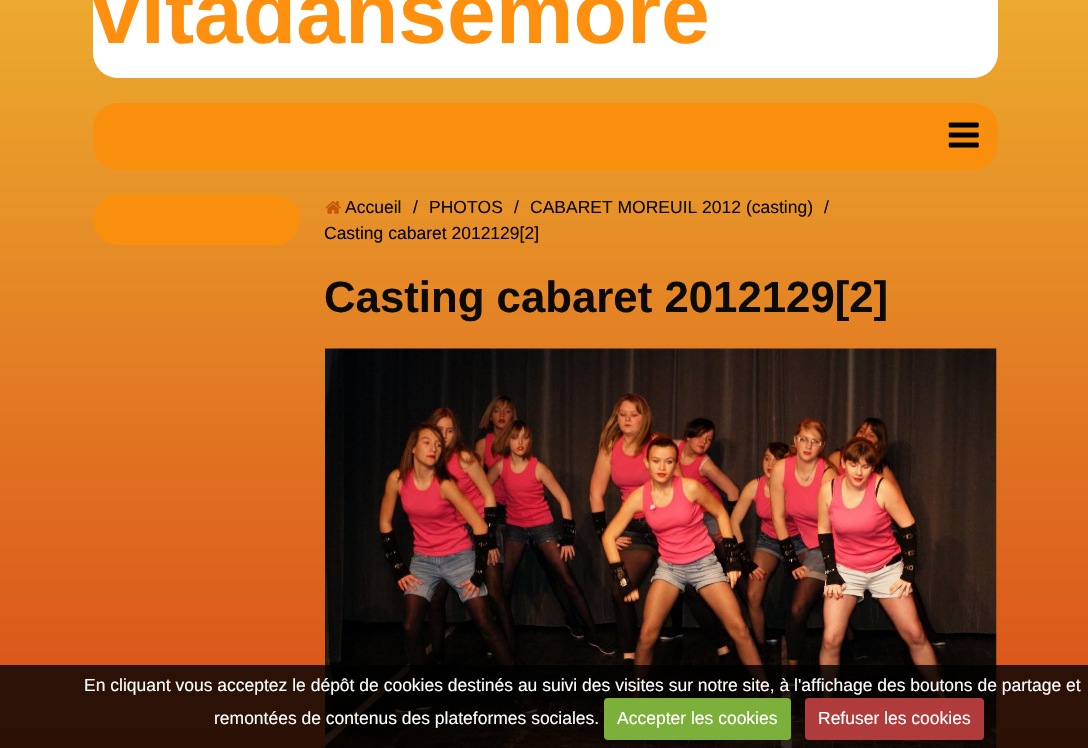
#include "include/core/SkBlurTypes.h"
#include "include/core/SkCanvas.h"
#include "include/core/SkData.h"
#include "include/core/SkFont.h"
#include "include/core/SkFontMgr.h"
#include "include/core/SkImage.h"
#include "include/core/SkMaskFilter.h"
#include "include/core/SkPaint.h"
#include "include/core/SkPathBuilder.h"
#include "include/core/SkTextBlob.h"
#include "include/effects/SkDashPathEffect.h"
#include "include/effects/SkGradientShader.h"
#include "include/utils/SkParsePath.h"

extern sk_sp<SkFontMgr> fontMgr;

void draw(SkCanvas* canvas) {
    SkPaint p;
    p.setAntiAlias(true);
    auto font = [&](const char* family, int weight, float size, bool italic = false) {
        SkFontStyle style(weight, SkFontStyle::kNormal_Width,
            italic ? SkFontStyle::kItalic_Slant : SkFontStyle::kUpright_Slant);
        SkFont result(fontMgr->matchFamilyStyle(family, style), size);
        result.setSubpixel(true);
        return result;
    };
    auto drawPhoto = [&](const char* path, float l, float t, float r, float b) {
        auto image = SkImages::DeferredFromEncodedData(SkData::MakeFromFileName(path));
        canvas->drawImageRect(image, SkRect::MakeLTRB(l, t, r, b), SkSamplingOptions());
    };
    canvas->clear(0xFFF1C232);
    drawPhoto("media/1.png", 0, 0, 1088, 748);
    p.setColor(0xFFFFFFFF);
    canvas->drawRoundRect(SkRect::MakeLTRB(93, -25, 998, 78), 25, 25, p);
    auto font1 = font("Liberation Sans", 700, 87.5f);
    p.setColor(0xFFFF8F0E);
    canvas->drawString("vitadansemore", 92, 43, font1, p);
    p.setColor(0xFFFA8F0D);
    canvas->drawRoundRect(SkRect::MakeLTRB(93, 103, 998, 170), 25, 25, p);
    drawPhoto("media/2.png", 948, 122, 979, 148);
    canvas->drawRoundRect(SkRect::MakeLTRB(93, 195, 300, 245), 25, 25, p);
    drawPhoto("media/3.png", 325, 201, 341, 214);
    auto font2 = font("Liberation Sans", 400, 17.5f);
    p.setColor(0xFF0B0A03);
    canvas->drawString("Accueil", 345, 213, font2, p);
    p.setColor(0xFF080404);
    canvas->drawString("/", 413, 213, font2, p);
    p.setColor(0xFF0B0A03);
    canvas->drawString("PHOTOS", 429, 213, font2, p);
    p.setColor(0xFF080404);
    canvas->drawString("/", 514, 213, font2, p);
    p.setColor(0xFF0B0A03);
    canvas->drawString("CABARET MOREUIL 2012 (casting)", 530, 213, font2, p);
    p.setColor(0xFF080404);
    canvas->drawString("/", 824, 213, font2, p);
    canvas->drawString("Casting cabaret 2012129[2]", 324, 239, font2, p);
    auto font3 = font("Liberation Sans", 700, 43.75f);
    p.setColor(0xFF0B0A03);
    canvas->drawString("Casting cabaret 2012129[2]", 324, 312, font3, p);
    drawPhoto("media/4.png", 325, 348, 997, 748);
    p.setColor(0xCC000000);
    canvas->drawRect(SkRect::MakeLTRB(0, 665, 1088, 748), p);
    p.setColor(0xFFFFFFFF);
    canvas->drawString("En cliquant vous acceptez le dépôt de cookies destinés au suivi des visites sur notre site, à l'affichage des boutons de partage et", 84, 691, font2, p);
    canvas->drawString("remontées de contenus des plateformes sociales.", 214, 724, font2, p);
    p.setColor(0xFF7DAF3B);
    canvas->drawRoundRect(SkRect::MakeLTRB(604, 698, 791, 740), 4, 4, p);
    p.setColor(0xFFFFFFFF);
    canvas->drawString("Accepter les cookies", 617, 724, font2, p);
    p.setColor(0xFFAF3B3B);
    canvas->drawRoundRect(SkRect::MakeLTRB(805, 698, 984, 740), 4, 4, p);
    p.setColor(0xFFFFFFFF);
    canvas->drawString("Refuser les cookies", 818, 724, font2, p);
}
